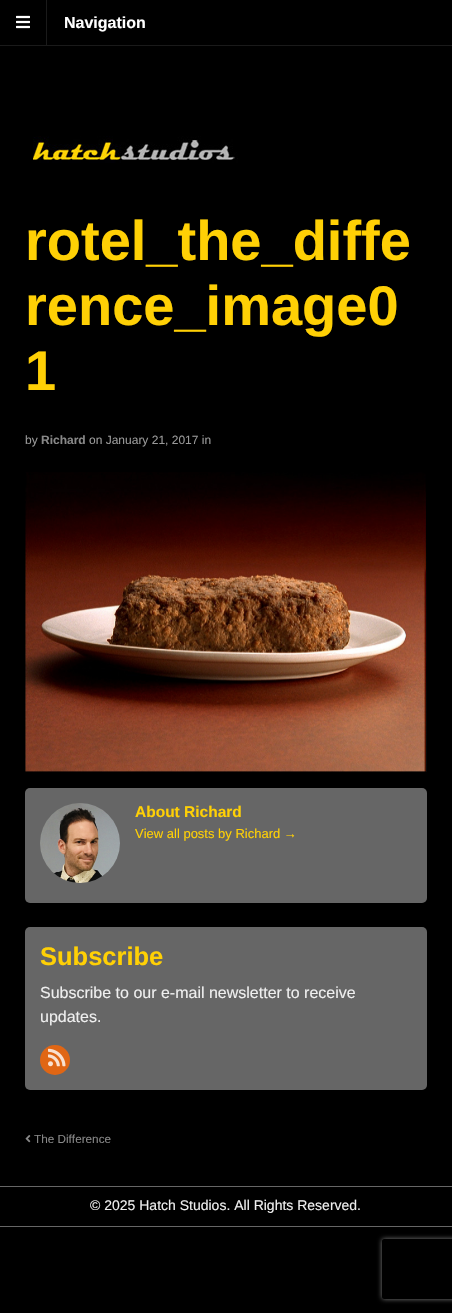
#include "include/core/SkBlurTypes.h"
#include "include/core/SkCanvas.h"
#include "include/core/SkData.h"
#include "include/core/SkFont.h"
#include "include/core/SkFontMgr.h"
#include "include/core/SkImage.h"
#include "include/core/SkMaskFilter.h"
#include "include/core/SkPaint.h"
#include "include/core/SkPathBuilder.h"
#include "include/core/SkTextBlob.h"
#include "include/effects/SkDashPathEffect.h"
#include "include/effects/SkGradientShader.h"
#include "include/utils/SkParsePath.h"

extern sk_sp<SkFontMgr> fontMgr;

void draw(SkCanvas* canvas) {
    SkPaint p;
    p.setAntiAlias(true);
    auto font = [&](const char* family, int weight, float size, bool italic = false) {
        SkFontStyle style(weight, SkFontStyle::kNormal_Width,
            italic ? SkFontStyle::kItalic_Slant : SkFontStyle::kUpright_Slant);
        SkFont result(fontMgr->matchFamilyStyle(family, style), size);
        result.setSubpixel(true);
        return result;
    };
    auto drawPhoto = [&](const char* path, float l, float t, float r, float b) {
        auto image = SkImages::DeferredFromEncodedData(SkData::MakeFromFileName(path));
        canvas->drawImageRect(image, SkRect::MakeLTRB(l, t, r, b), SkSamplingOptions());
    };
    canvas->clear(0xFF000000);
    p.setColor(0xFF1A1A1A);
    canvas->drawRect(SkRect::MakeLTRB(0, 45, 452, 46), p);
    canvas->drawRect(SkRect::MakeLTRB(46, 0, 47, 45), p);
    drawPhoto("media/1.png", 16, 15, 30, 29);
    auto font1 = font("Liberation Sans", 700, 16);
    p.setColor(0xFFFFFFFF);
    canvas->drawString("Navigation", 64, 28, font1, p);
    drawPhoto("media/2.png", 33, 136, 238, 163);
    auto font2 = font("Liberation Sans", 700, 56);
    p.setColor(0xFFFFD005);
    {
        const struct { const char* s; float x, y; } items[] = {
            {"rotel_the_diffe", 25, 260},
            {"rence_image0", 25, 325},
            {"1", 25, 390},
        };
        for (auto [s, x, y] : items) {
            canvas->drawString(s, x, y, font2, p);
        }
    }
    auto font3 = font("Liberation Sans", 400, 12);
    p.setColor(0xFF999999);
    canvas->drawString("by", 25, 444, font3, p);
    auto font4 = font("Liberation Sans", 700, 12);
    p.setColor(0xFF888888);
    canvas->drawString("Richard", 41, 444, font4, p);
    p.setColor(0xFF999999);
    canvas->drawString("on January 21, 2017 in", 89, 444, font3, p);
    drawPhoto("media/3.png", 25, 472, 427, 772);
    p.setColor(0xFF666666);
    canvas->drawRoundRect(SkRect::MakeLTRB(25, 788, 427, 903), 5, 5, p);
    drawPhoto("media/4.png", 40, 803, 120, 883);
    auto font5 = font("Liberation Sans", 700, 15.5f);
    p.setColor(0xFFFFD005);
    canvas->drawString("About Richard", 135, 817, font5, p);
    auto font6 = font("Liberation Sans", 400, 13);
    canvas->drawString("View all posts by Richard →", 135, 838, font6, p);
    p.setColor(0xFF666666);
    canvas->drawRoundRect(SkRect::MakeLTRB(25, 927, 427, 1090), 5, 5, p);
    auto font7 = font("Liberation Sans", 700, 25.5f);
    p.setColor(0xFFFFD005);
    canvas->drawString("Subscribe", 40, 965, font7, p);
    auto font8 = font("Liberation Sans", 400, 16);
    p.setColor(0xFFEFEFEF);
    canvas->drawString("Subscribe to our e-mail newsletter to receive", 40, 998, font8, p);
    canvas->drawString("updates.", 40, 1022, font8, p);
    p.setColor(0xFFE06614);
    canvas->drawCircle(55, 1060, 15, p);
    drawPhoto("media/5.png", 48, 1048, 66, 1067);
    drawPhoto("media/6.png", 25, 1135, 31, 1143);
    auto font9 = font("Liberation Sans", 400, 11.75f);
    p.setColor(0xFF888888);
    canvas->drawString("The Difference", 34, 1143, font9, p);
    p.setColor(0xFF666666);
    canvas->drawRect(SkRect::MakeLTRB(0, 1186, 452, 1187), p);
    canvas->drawRect(SkRect::MakeLTRB(0, 1226, 452, 1227), p);
    auto font10 = font("Liberation Sans", 400, 14);
    p.setColor(0xFFEFEFEF);
    canvas->drawString("© 2025 Hatch Studios. All Rights Reserved.", 90, 1210, font10, p);
    canvas->save();
    canvas->clipPath(SkPathBuilder(SkPathFillType::kEvenOdd).moveTo(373, 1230).lineTo(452, 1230).lineTo(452, 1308).lineTo(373, 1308).close().moveTo(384, 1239).lineTo(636, 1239).cubicTo(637, 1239, 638, 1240, 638, 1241).lineTo(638, 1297).cubicTo(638, 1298, 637, 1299, 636, 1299).lineTo(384, 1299).cubicTo(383, 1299, 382, 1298, 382, 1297).lineTo(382, 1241).cubicTo(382, 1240, 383, 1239, 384, 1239).close().detach(), true);
    p.setColor(0xFF808080);
    p.setMaskFilter(SkMaskFilter::MakeBlur(kNormal_SkBlurStyle, 2.5f));
    canvas->drawRoundRect(SkRect::MakeLTRB(382, 1239, 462, 1299), 2, 2, p);
    p.setMaskFilter(nullptr);
    canvas->restore();
}
